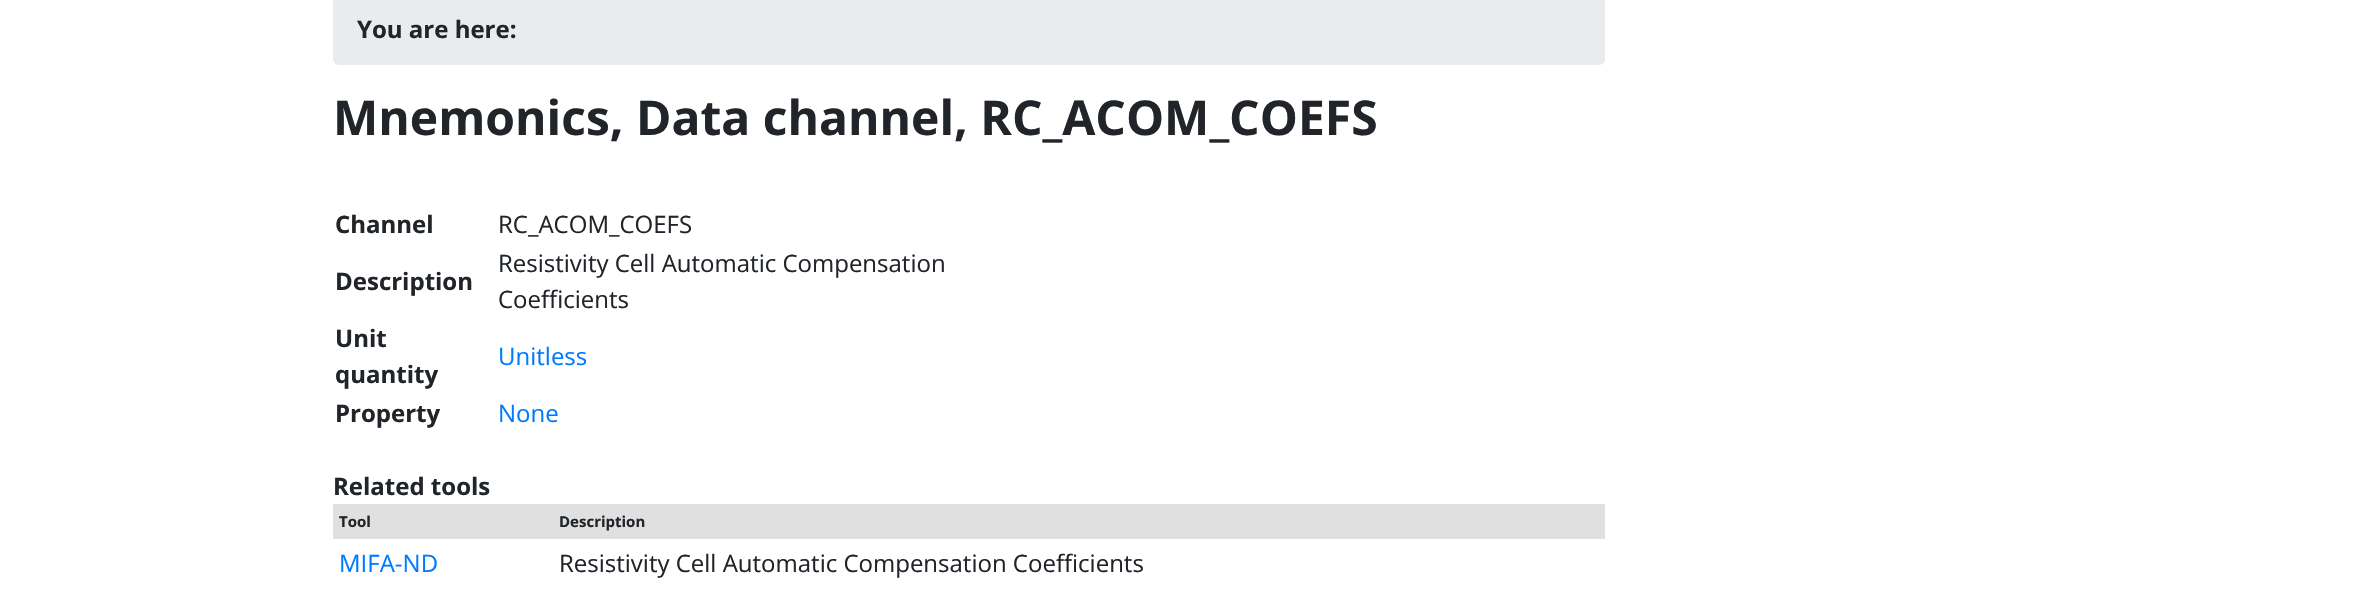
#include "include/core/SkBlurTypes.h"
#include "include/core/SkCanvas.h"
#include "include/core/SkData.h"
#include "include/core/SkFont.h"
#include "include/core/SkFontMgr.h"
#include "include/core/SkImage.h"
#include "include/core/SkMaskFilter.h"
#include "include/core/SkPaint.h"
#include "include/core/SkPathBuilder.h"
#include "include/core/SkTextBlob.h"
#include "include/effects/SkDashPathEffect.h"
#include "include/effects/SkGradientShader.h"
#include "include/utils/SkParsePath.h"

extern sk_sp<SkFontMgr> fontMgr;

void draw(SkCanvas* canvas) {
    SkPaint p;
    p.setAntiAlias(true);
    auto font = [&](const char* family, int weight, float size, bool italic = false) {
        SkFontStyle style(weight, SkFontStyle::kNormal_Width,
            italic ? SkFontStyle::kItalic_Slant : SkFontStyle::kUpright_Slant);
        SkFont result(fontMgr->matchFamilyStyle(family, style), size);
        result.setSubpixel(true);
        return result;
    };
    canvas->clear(0xFFFFFFFF);
    p.setColor(0xFFE9ECEF);
    canvas->drawRoundRect(SkRect::MakeLTRB(333, -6, 1605, 65), 6, 6, p);
    auto font1 = font("Open Sans", 700, 24);
    p.setColor(0xFF212529);
    canvas->drawString("You are here:", 357, 38, font1, p);
    auto font2 = font("Open Sans", 700, 48);
    canvas->drawString("Mnemonics, Data channel, RC_ACOM_COEFS", 333, 135, font2, p);
    canvas->drawString("Channel", 335, 233, font1, p);
    auto font3 = font("Open Sans", 400, 24);
    canvas->drawString("RC_ACOM_COEFS", 498, 233, font3, p);
    canvas->drawString("Description", 335, 290, font1, p);
    canvas->drawString("Resistivity Cell Automatic Compensation", 498, 272, font3, p);
    canvas->drawString("Coefficients", 498, 308, font3, p);
    canvas->drawString("Unit", 335, 347, font1, p);
    canvas->drawString("quantity", 335, 383, font1, p);
    p.setColor(0xFF007BFF);
    canvas->drawString("Unitless", 498, 365, font3, p);
    p.setColor(0xFF212529);
    canvas->drawString("Property", 335, 422, font1, p);
    p.setColor(0xFF007BFF);
    canvas->drawString("None", 498, 422, font3, p);
    p.setColor(0xFF212529);
    canvas->drawString("Related tools", 333, 495, font1, p);
    p.setColor(0xFFE0E0E0);
    canvas->drawRect(SkRect::MakeLTRB(333, 504, 1605, 539), p);
    auto font4 = font("Open Sans", 700, 15);
    p.setColor(0xFF212529);
    canvas->drawString("Tool", 339, 527, font4, p);
    canvas->drawString("Description", 559, 527, font4, p);
    p.setColor(0xFF007BFF);
    canvas->drawString("MIFA-ND", 339, 572, font3, p);
    p.setColor(0xFF212529);
    canvas->drawString("Resistivity Cell Automatic Compensation Coefficients", 559, 572, font3, p);
}
